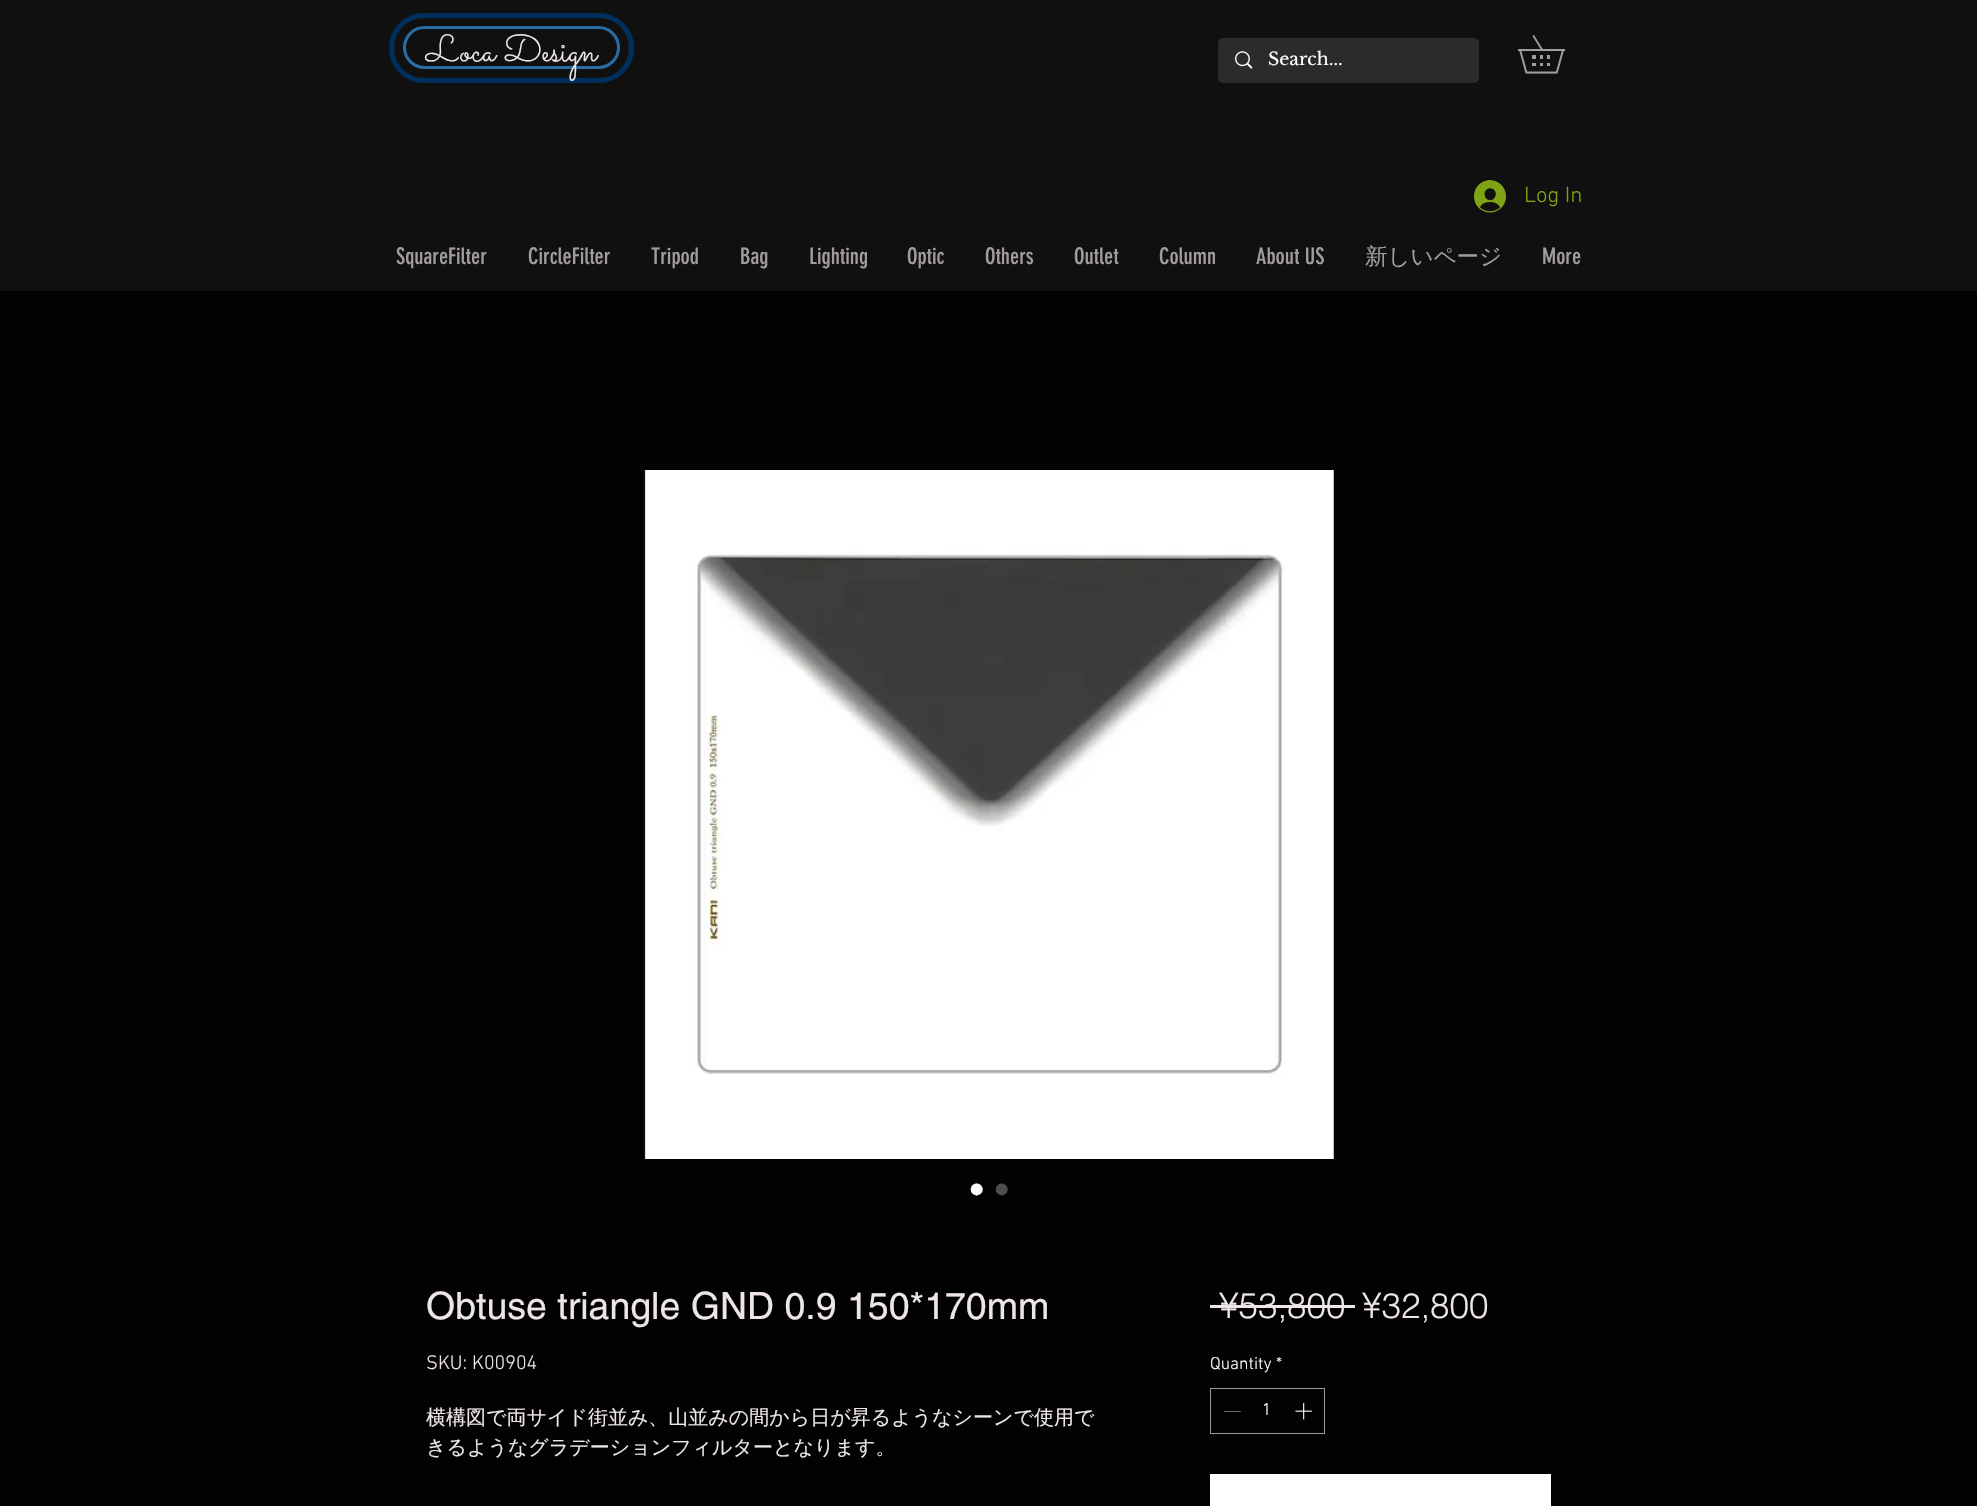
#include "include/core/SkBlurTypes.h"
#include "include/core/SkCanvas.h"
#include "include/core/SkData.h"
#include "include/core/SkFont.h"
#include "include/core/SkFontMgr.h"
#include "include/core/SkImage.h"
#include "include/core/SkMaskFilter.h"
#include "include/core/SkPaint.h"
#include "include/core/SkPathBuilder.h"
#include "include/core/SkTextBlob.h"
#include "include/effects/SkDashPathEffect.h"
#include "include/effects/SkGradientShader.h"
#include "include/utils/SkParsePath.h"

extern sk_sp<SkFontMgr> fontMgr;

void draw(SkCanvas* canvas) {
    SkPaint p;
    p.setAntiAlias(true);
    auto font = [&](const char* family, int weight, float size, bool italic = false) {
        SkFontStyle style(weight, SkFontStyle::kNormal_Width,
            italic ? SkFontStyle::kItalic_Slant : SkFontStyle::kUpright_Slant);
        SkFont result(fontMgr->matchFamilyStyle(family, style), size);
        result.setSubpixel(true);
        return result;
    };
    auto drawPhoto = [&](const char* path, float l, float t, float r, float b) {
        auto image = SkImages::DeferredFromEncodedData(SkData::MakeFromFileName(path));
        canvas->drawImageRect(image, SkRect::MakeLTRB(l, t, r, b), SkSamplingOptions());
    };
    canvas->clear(0xFF020202);
    p.setColor(0xFF101010);
    canvas->drawRect(SkRect::MakeLTRB(0, 0, 1977, 291), p);
    p.setStyle(SkPaint::kStroke_Style);
    p.setStrokeWidth(5);
    p.setColor(0xFF002E5D);
    canvas->drawRoundRect(SkRect::MakeLTRB(391.5f, 15.5f, 631.5f, 80.5f), 32.5f, 32.5f, p);
    p.setStrokeWidth(3);
    p.setColor(0xFF2B6CA3);
    canvas->drawRoundRect(SkRect::MakeLTRB(404.5f, 27.5f, 618.5f, 67.5f), 20, 20, p);
    auto font1 = font("Sacramento", 400, 37.5f);
    p.setStyle(SkPaint::kFill_Style);
    p.setColor(0xFFEEE6E6);
    canvas->drawString("Loca Design", 426, 61, font1, p);
    p.setColor(0xFF2B2B2B);
    canvas->drawRoundRect(SkRect::MakeLTRB(1218, 38, 1479, 83), 5, 5, p);
    drawPhoto("media/1.png", 1235, 51, 1253, 69);
    auto font2 = font("Libre Baskerville", 400, 17.5f);
    p.setColor(0xFFFFFFFF);
    canvas->drawString("Search...", 1268, 65, font2, p);
    drawPhoto("media/2.png", 1518, 35, 1565, 74);
    drawPhoto("media/3.png", 1474, 180, 1506, 213);
    auto font3 = font("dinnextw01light", 300, 22.5f);
    p.setColor(0xFF80A315);
    canvas->drawString("Log In", 1524, 202, font3, p);
    auto font4 = font("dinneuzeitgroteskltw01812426", 400, 22.5f);
    p.setColor(0xFFA29C9C);
    {
        const struct { const char* s; float x, y; } items[] = {
            {"SquareFilter", 396, 264},
            {"CircleFilter", 528, 264},
            {"Tripod", 651, 264},
            {"Bag", 740, 264},
            {"Lighting", 809, 264},
            {"Optic", 907, 264},
            {"Others", 985, 264},
            {"Outlet", 1074, 264},
            {"Column", 1159, 264},
            {"About US", 1256, 264},
        };
        for (auto [s, x, y] : items) {
            canvas->drawString(s, x, y, font4, p);
        }
    }
    auto font5 = font("WenQuanYi Zen Hei", 500, 22.5f);
    canvas->drawString("新しいページ", 1365, 264, font5, p);
    canvas->drawString("More", 1542, 264, font4, p);
    drawPhoto("media/4.png", 644, 470, 1334, 1159);
    auto font6 = font("Liberation Sans", 400, 44);
    p.setColor(0xFFFFFFFF);
    canvas->drawString("•", 969, 1204, font6, p);
    p.setColor(0xFF4E4E4E);
    canvas->drawString("•", 994, 1204, font6, p);
    auto font7 = font("helvetica", 400, 37.5f);
    p.setColor(0xFFEEE6E6);
    canvas->drawString("Obtuse triangle GND 0.9 150*170mm", 426, 1319, font7, p);
    auto font8 = font("dinnextw01light", 300, 20);
    canvas->drawString("SKU: K00904", 426, 1369, font8, p);
    auto font9 = font("WenQuanYi Zen Hei", 500, 20);
    canvas->drawString("横構図で両サイド街並み、山並みの間から日が昇るようなシーンで使用で", 426, 1424, font9, p);
    canvas->drawString("きるようなグラデーションフィルターとなります。", 426, 1454, font9, p);
    auto font10 = font("helvetica", 300, 35);
    canvas->drawString("¥53,800", 1219, 1318, font10, p);
    canvas->drawRect(SkRect::MakeLTRB(1210, 1305, 1355, 1308), p);
    canvas->drawString("¥32,800", 1362, 1318, font10, p);
    auto font11 = font("dinnextw01light", 300, 17.5f);
    p.setColor(0xFFFFFFFF);
    canvas->drawString("Quantity", 1210, 1369, font11, p);
    canvas->drawString("*", 1276, 1369, font11, p);
    p.setStyle(SkPaint::kStroke_Style);
    p.setStrokeWidth(1);
    p.setColor(0xFF9A9A9A);
    canvas->drawRect(SkRect::MakeLTRB(1210.5f, 1388.5f, 1324.5f, 1433.5f), p);
    p.setStyle(SkPaint::kFill_Style);
    p.setColor(0xFF656565);
    canvas->drawRect(SkRect::MakeLTRB(1224, 1411, 1241, 1412), p);
    p.setColor(0xFFFFFFFF);
    canvas->drawString("1", 1262, 1415, font11, p);
    drawPhoto("media/5.png", 1295, 1402, 1312, 1420);
    canvas->drawRect(SkRect::MakeLTRB(1210, 1474, 1551, 1506), p);
}
